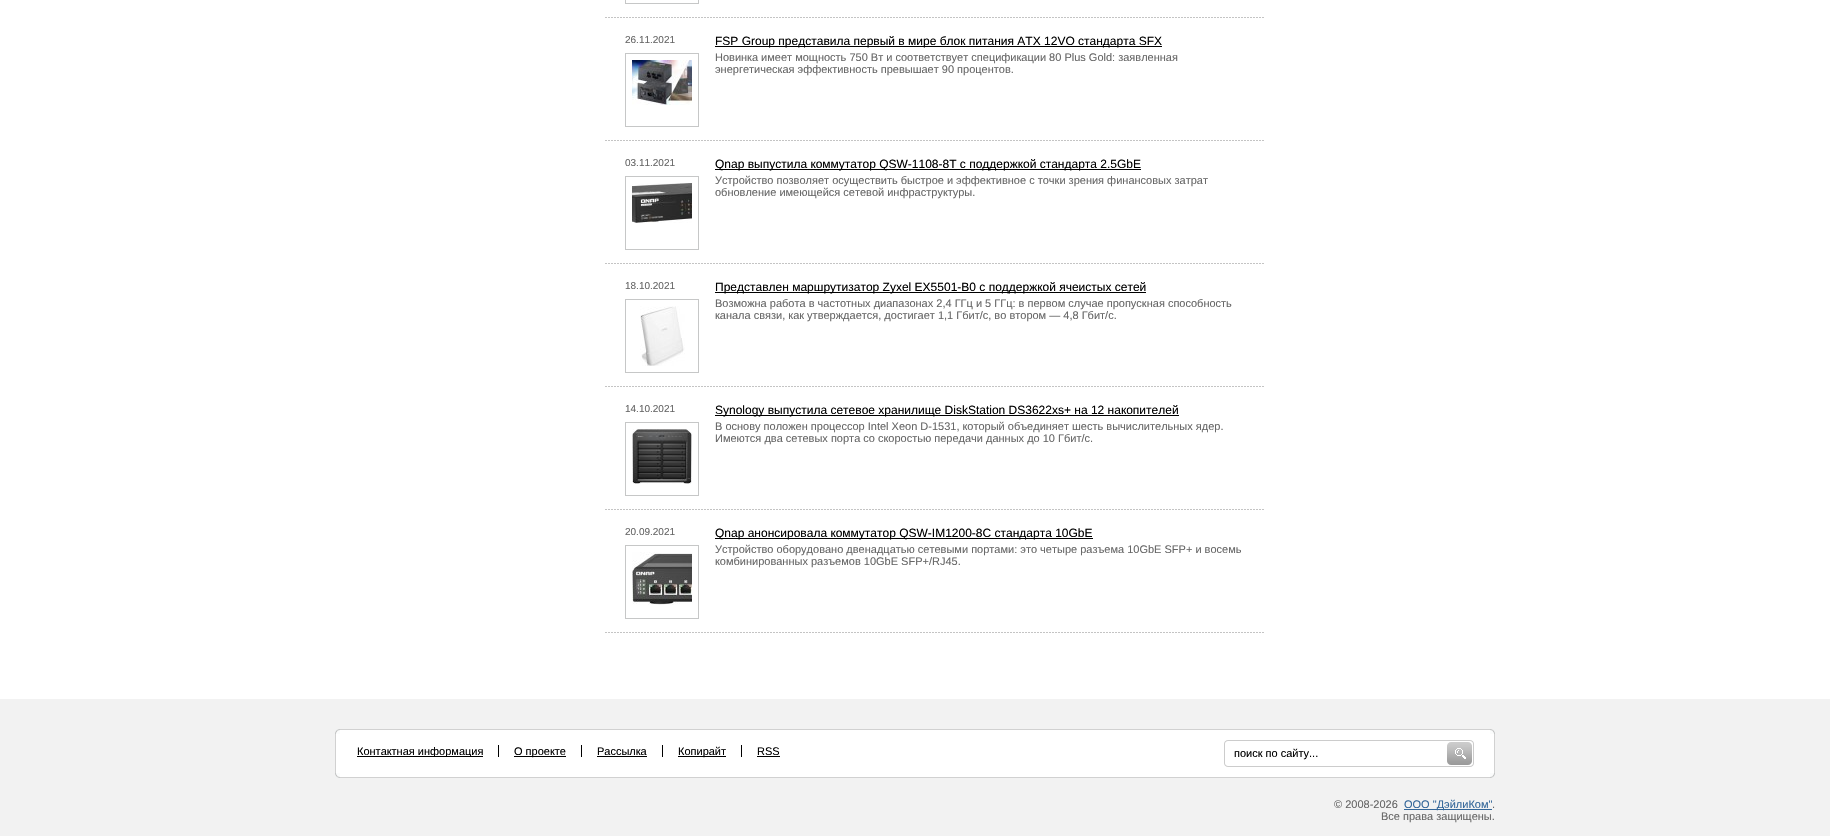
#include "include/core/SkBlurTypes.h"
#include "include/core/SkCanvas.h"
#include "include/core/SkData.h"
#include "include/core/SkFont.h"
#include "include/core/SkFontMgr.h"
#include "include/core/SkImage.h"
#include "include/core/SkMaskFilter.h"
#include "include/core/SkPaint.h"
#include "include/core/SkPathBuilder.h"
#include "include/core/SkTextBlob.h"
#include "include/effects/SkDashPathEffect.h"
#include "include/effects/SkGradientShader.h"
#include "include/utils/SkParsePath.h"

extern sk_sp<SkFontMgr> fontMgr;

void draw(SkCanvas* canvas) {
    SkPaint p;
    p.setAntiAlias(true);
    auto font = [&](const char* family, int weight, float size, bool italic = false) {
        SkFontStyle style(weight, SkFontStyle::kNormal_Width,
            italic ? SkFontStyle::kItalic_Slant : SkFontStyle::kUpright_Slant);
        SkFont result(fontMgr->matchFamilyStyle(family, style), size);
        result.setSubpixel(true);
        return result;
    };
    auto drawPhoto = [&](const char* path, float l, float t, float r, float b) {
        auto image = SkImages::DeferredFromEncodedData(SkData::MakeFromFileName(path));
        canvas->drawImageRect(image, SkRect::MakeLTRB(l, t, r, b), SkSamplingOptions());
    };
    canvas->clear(0xFFFFFFFF);
    drawPhoto("media/1.png", 605, 17, 1264, 18);
    p.setStyle(SkPaint::kStroke_Style);
    p.setStrokeWidth(1);
    p.setColor(0xFFC6C7C7);
    canvas->drawRect(SkRect::MakeLTRB(625.5f, -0.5f, 698.5f, 3.5f), p);
    drawPhoto("media/1.png", 605, 140, 1264, 141);
    auto font1 = font("Liberation Sans", 400, 10);
    p.setStyle(SkPaint::kFill_Style);
    p.setColor(0xFF666666);
    canvas->drawString("26.11.2021", 625, 43, font1, p);
    p.setColor(0xFF000000);
    canvas->drawRect(SkRect::MakeLTRB(715, 46, 1162, 47), p);
    auto font2 = font("Liberation Sans", 400, 12);
    canvas->drawString("FSP Group представила первый в мире блок питания ATX 12VO стандарта SFX", 715, 45, font2, p);
    auto font3 = font("Liberation Sans", 400, 11);
    p.setColor(0xFF666666);
    canvas->drawString("Новинка имеет мощность 750 Вт и соответствует спецификации 80 Plus Gold: заявленная", 715, 61, font3, p);
    canvas->drawString("энергетическая эффективность превышает 90 процентов.", 715, 73, font3, p);
    p.setStyle(SkPaint::kStroke_Style);
    p.setColor(0xFFC6C7C7);
    canvas->drawRect(SkRect::MakeLTRB(625.5f, 53.5f, 698.5f, 126.5f), p);
    drawPhoto("media/2.png", 632, 60, 692, 105);
    drawPhoto("media/1.png", 605, 263, 1264, 264);
    p.setStyle(SkPaint::kFill_Style);
    p.setColor(0xFF666666);
    canvas->drawString("03.11.2021", 625, 166, font1, p);
    p.setColor(0xFF000000);
    canvas->drawRect(SkRect::MakeLTRB(715, 169, 1141, 170), p);
    canvas->drawString("Qnap выпустила коммутатор QSW-1108-8T с поддержкой стандарта 2.5GbE", 715, 168, font2, p);
    p.setColor(0xFF666666);
    canvas->drawString("Устройство позволяет осуществить быстрое и эффективное с точки зрения финансовых затрат", 715, 184, font3, p);
    canvas->drawString("обновление имеющейся сетевой инфраструктуры.", 715, 196, font3, p);
    p.setStyle(SkPaint::kStroke_Style);
    p.setColor(0xFFC6C7C7);
    canvas->drawRect(SkRect::MakeLTRB(625.5f, 176.5f, 698.5f, 249.5f), p);
    drawPhoto("media/3.png", 632, 183, 692, 223);
    drawPhoto("media/1.png", 605, 386, 1264, 387);
    p.setStyle(SkPaint::kFill_Style);
    p.setColor(0xFF666666);
    canvas->drawString("18.10.2021", 625, 289, font1, p);
    p.setColor(0xFF000000);
    canvas->drawRect(SkRect::MakeLTRB(715, 292, 1146, 293), p);
    canvas->drawString("Представлен маршрутизатор Zyxel EX5501-B0 с поддержкой ячеистых сетей", 715, 291, font2, p);
    p.setColor(0xFF666666);
    canvas->drawString("Возможна работа в частотных диапазонах 2,4 ГГц и 5 ГГц: в первом случае пропускная способность", 715, 307, font3, p);
    canvas->drawString("канала связи, как утверждается, достигает 1,1 Гбит/с, во втором — 4,8 Гбит/с.", 715, 319, font3, p);
    p.setStyle(SkPaint::kStroke_Style);
    p.setColor(0xFFC6C7C7);
    canvas->drawRect(SkRect::MakeLTRB(625.5f, 299.5f, 698.5f, 372.5f), p);
    drawPhoto("media/4.png", 640, 306, 685, 366);
    drawPhoto("media/1.png", 605, 509, 1264, 510);
    p.setStyle(SkPaint::kFill_Style);
    p.setColor(0xFF666666);
    canvas->drawString("14.10.2021", 625, 412, font1, p);
    p.setColor(0xFF000000);
    canvas->drawRect(SkRect::MakeLTRB(715, 415, 1179, 416), p);
    canvas->drawString("Synology выпустила сетевое хранилище DiskStation DS3622xs+ на 12 накопителей", 715, 414, font2, p);
    p.setColor(0xFF666666);
    canvas->drawString("В основу положен процессор Intel Xeon D-1531, который объединяет шесть вычислительных ядер.", 715, 430, font3, p);
    canvas->drawString("Имеются два сетевых порта со скоростью передачи данных до 10 Гбит/с.", 715, 442, font3, p);
    p.setStyle(SkPaint::kStroke_Style);
    p.setColor(0xFFC6C7C7);
    canvas->drawRect(SkRect::MakeLTRB(625.5f, 422.5f, 698.5f, 495.5f), p);
    drawPhoto("media/5.png", 632, 429, 692, 484);
    drawPhoto("media/1.png", 605, 632, 1264, 633);
    p.setStyle(SkPaint::kFill_Style);
    p.setColor(0xFF666666);
    canvas->drawString("20.09.2021", 625, 535, font1, p);
    p.setColor(0xFF000000);
    canvas->drawRect(SkRect::MakeLTRB(715, 538, 1093, 539), p);
    canvas->drawString("Qnap анонсировала коммутатор QSW-IM1200-8C стандарта 10GbE", 715, 537, font2, p);
    p.setColor(0xFF666666);
    canvas->drawString("Устройство оборудовано двенадцатью сетевыми портами: это четыре разъема 10GbE SFP+ и восемь", 715, 553, font3, p);
    canvas->drawString("комбинированных разъемов 10GbE SFP+/RJ45.", 715, 565, font3, p);
    p.setStyle(SkPaint::kStroke_Style);
    p.setColor(0xFFC6C7C7);
    canvas->drawRect(SkRect::MakeLTRB(625.5f, 545.5f, 698.5f, 618.5f), p);
    drawPhoto("media/6.png", 632, 552, 692, 605);
    p.setStyle(SkPaint::kFill_Style);
    p.setColor(0xFFF2F2F2);
    canvas->drawRect(SkRect::MakeLTRB(0, 699, 1830, 836), p);
    p.setColor(0xFFFFFFFF);
    canvas->drawRect(SkRect::MakeLTRB(335.5f, 729.5f, 1494.5f, 777.5f), p);
    p.setStyle(SkPaint::kStroke_Style);
    p.setColor(0xFFD1D1D1);
    canvas->drawRect(SkRect::MakeLTRB(335.5f, 729.5f, 1494.5f, 777.5f), p);
    drawPhoto("media/7.png", 335, 729, 340, 734);
    drawPhoto("media/8.png", 1490, 729, 1495, 734);
    p.setStyle(SkPaint::kFill_Style);
    p.setColor(0xFF000000);
    canvas->drawRect(SkRect::MakeLTRB(357, 756, 483, 757), p);
    canvas->save();
    canvas->clipRect(SkRect::MakeLTRB(356, 745, 810, 757));
    canvas->drawString("Контактная информация", 357, 755, font3, p);
    canvas->restore();
    canvas->drawRect(SkRect::MakeLTRB(498, 745, 499, 757), p);
    canvas->drawRect(SkRect::MakeLTRB(514, 756, 566, 757), p);
    canvas->drawString("О проекте", 514, 755, font3, p);
    canvas->drawRect(SkRect::MakeLTRB(581, 745, 582, 757), p);
    canvas->drawString("Рассылка", 597, 755, font3, p);
    {
        const struct { float l, t, r, b; SkColor color; } items[] = {
            {597, 756, 647, 757, 0xFF000000},
            {662, 745, 663, 757, 0xFF000000},
            {678, 756, 726, 757, 0xFF000000},
        };
        for (auto [l, t, r, b, color] : items) {
            p.setColor(color);
            canvas->drawRect(SkRect::MakeLTRB(l, t, r, b), p);
        }
    }
    canvas->drawString("Копирайт", 678, 755, font3, p);
    canvas->drawRect(SkRect::MakeLTRB(741, 745, 742, 757), p);
    canvas->drawString("RSS", 757, 755, font3, p);
    canvas->drawRect(SkRect::MakeLTRB(757, 756, 780, 757), p);
    drawPhoto("media/9.png", 1224, 740, 1447, 767);
    canvas->drawString("поиск по сайту...", 1234, 757, font3, p);
    drawPhoto("media/10.png", 1447, 740, 1474, 767);
    drawPhoto("media/11.png", 335, 773, 340, 778);
    drawPhoto("media/12.png", 1490, 773, 1495, 778);
    p.setColor(0xFF666666);
    canvas->drawString("© 2008-2026", 1334, 808, font3, p);
    p.setColor(0xFF336699);
    canvas->drawRect(SkRect::MakeLTRB(1404, 809, 1492, 810), p);
    canvas->drawString("ООО \"ДэйлиКом\"", 1404, 808, font3, p);
    p.setColor(0xFF666666);
    canvas->drawString(".", 1492, 808, font3, p);
    canvas->drawString("Все права защищены.", 1381, 820, font3, p);
}
